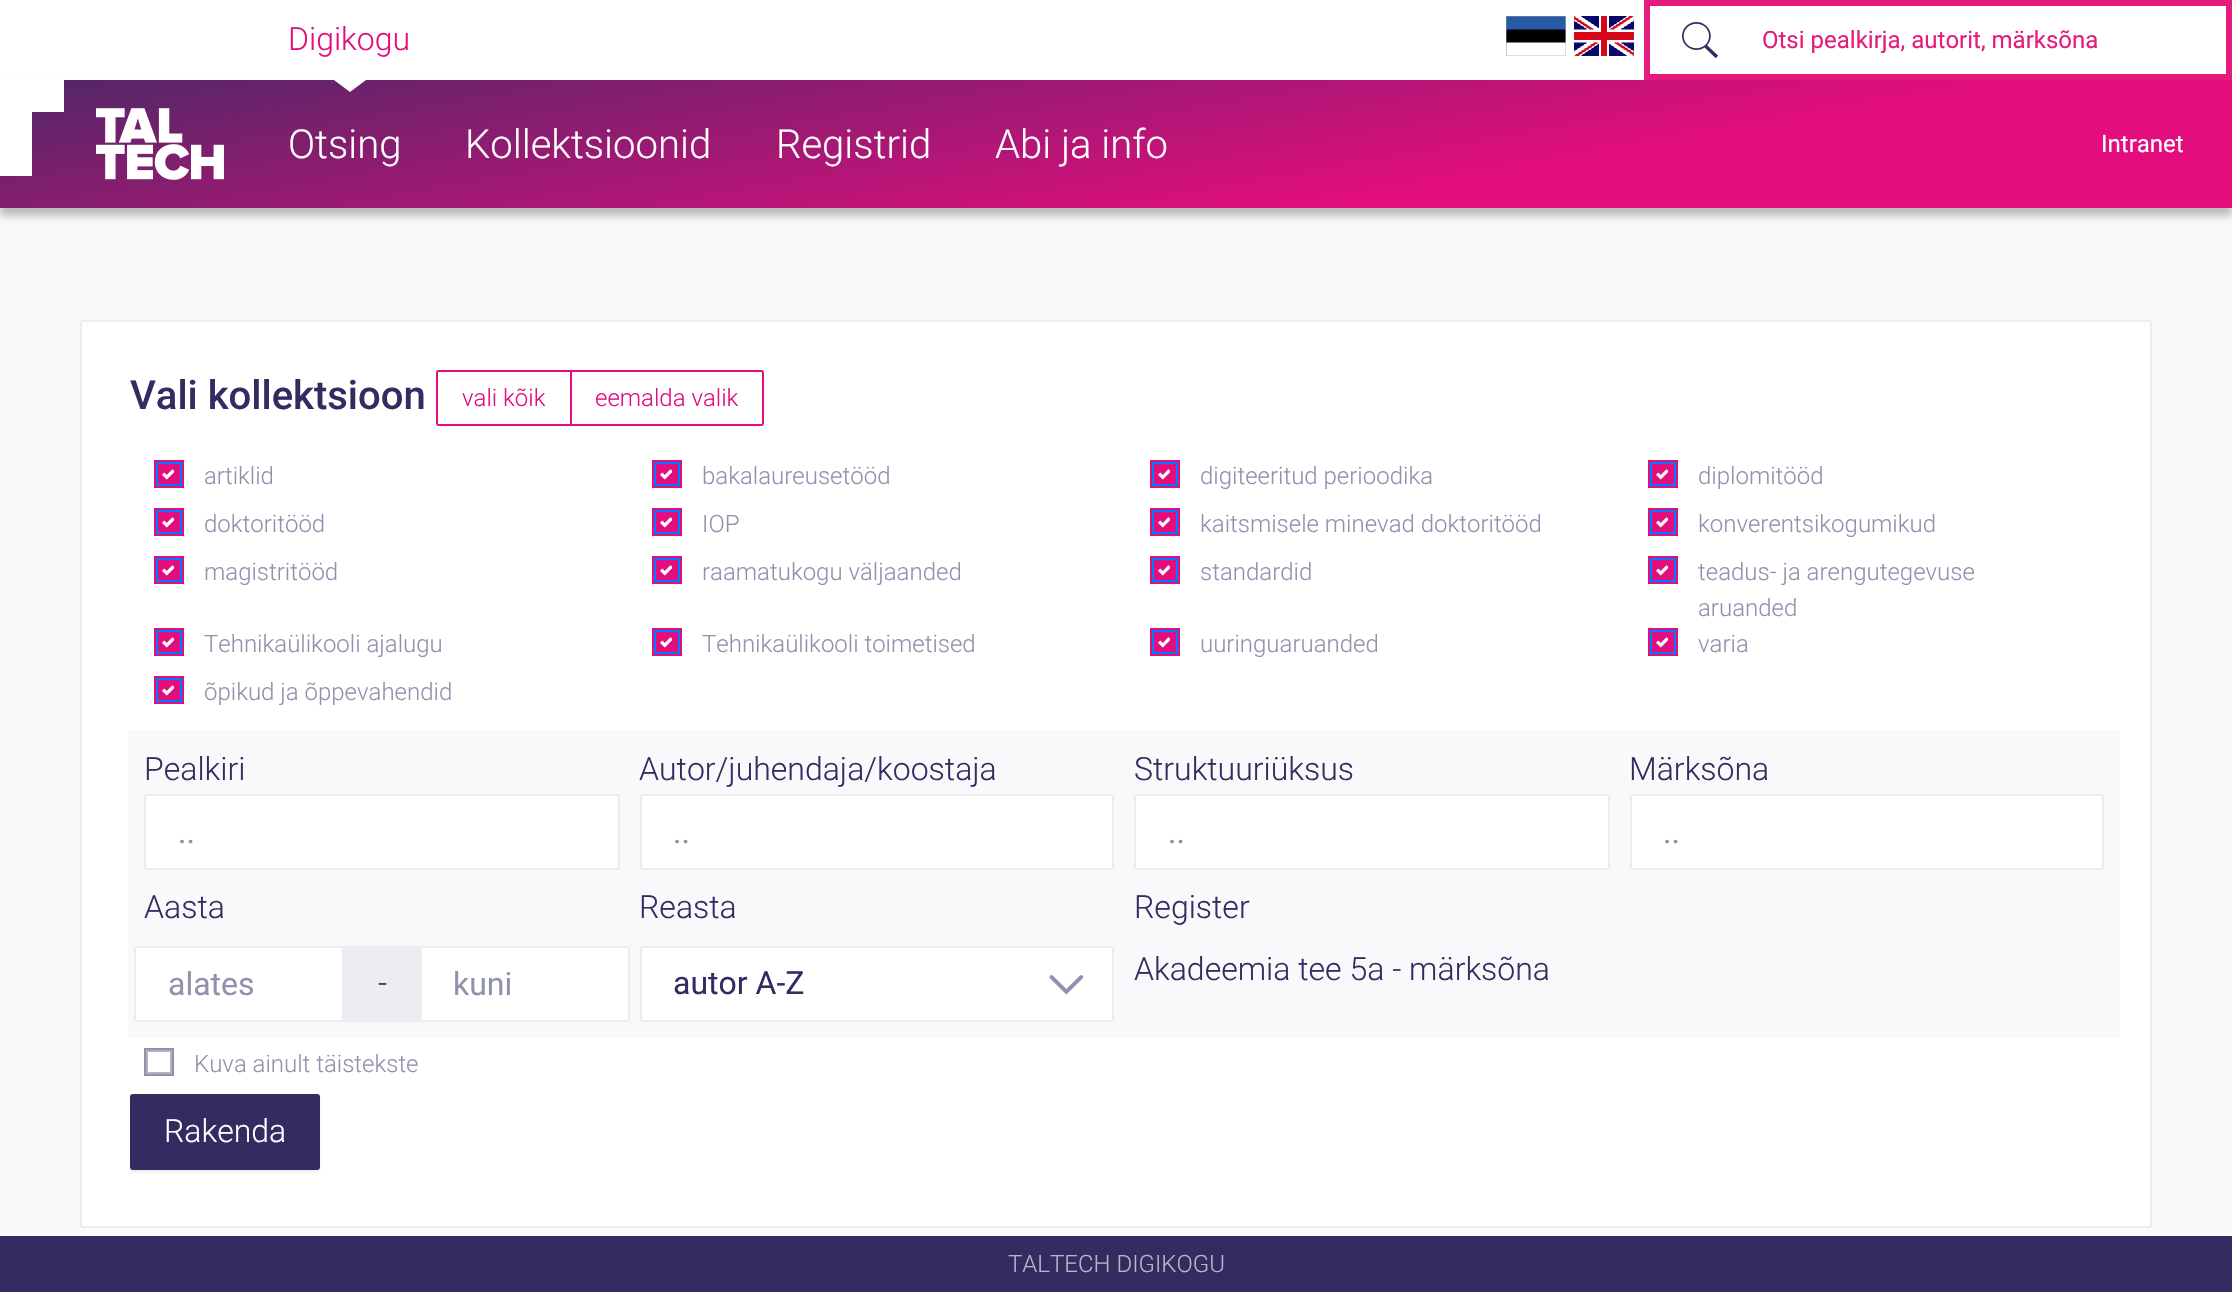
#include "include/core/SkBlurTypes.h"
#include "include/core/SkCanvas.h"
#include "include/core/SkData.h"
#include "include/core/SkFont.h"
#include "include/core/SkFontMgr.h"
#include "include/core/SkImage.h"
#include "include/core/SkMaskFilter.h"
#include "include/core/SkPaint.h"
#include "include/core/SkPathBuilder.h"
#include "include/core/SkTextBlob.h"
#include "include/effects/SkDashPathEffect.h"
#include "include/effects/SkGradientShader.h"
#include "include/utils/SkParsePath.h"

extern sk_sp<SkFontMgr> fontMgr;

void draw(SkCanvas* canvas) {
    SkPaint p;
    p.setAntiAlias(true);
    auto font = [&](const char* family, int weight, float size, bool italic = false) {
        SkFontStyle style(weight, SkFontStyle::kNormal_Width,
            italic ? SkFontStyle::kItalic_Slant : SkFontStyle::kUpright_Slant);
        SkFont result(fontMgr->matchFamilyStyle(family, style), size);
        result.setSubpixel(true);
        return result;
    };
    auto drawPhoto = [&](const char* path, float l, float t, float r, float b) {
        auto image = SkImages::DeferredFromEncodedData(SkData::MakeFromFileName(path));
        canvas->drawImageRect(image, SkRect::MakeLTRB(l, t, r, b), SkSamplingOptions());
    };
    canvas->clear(0xFFFBFAFB);
    p.setColor(0xFFFFFFFF);
    canvas->drawRect(SkRect::MakeLTRB(0, 0, 1644, 80), p);
    auto font1 = font("Roboto", 300, 32);
    p.setColor(0xFFE40D7E);
    canvas->drawString("Digikogu", 288, 50, font1, p);
    p.setColor(0x40000000);
    p.setMaskFilter(SkMaskFilter::MakeBlur(kNormal_SkBlurStyle, 4));
    canvas->drawRect(SkRect::MakeLTRB(0, 88, 2232, 216), p);
    p.setMaskFilter(nullptr);
    {
        const SkColor colors[] = {0xFF512766, 0xFFE40D7E};
        const float stops[] = {0, 0.7f};
        const SkPoint ends[] = {{1071, -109}, {1161, 397}};
        p.setShader(SkGradientShader::MakeLinear(ends, colors, stops, 2, SkTileMode::kClamp));
        p.setAlpha(255);
    }
    canvas->drawRect(SkRect::MakeLTRB(0, 80, 2232, 208), p);
    p.setShader(nullptr);
    p.setColor(0xFFFFFFFF);
    canvas->drawPath(SkPathBuilder().moveTo(334, 80).lineTo(366, 80).lineTo(350, 92).close().detach(), p);
    drawPhoto("media/1.png", 1506, 16, 1566, 56);
    drawPhoto("media/2.png", 1574, 16, 1634, 56);
    p.setColor(0xFFE41D7D);
    canvas->drawRect(SkRect::MakeLTRB(1644, 0, 2232, 80), p);
    p.setColor(0xFFFFFFFF);
    canvas->drawRect(SkRect::MakeLTRB(1650, 6, 2226, 74), p);
    drawPhoto("media/3.png", 1682, 22, 1718, 58);
    auto font2 = font("Roboto", 400, 24);
    p.setColor(0xFFE41D7D);
    canvas->drawString("Otsi pealkirja, autorit, märksõna", 1762, 48, font2, p);
    p.setColor(0xFFFFFFFF);
    canvas->drawRect(SkRect::MakeLTRB(0, 80, 64, 112), p);
    canvas->drawRect(SkRect::MakeLTRB(0, 112, 32, 176), p);
    drawPhoto("media/4.png", 96, 108, 224, 180);
    auto font3 = font("Roboto", 300, 40);
    {
        const struct { const char* s; float x, y; } items[] = {
            {"Otsing", 288, 158},
            {"Kollektsioonid", 465, 158},
            {"Registrid", 776, 158},
            {"Abi ja info", 995, 158},
        };
        for (auto [s, x, y] : items) {
            canvas->drawString(s, x, y, font3, p);
        }
    }
    canvas->drawString("Intranet", 2101, 152, font2, p);
    canvas->drawRoundRect(SkRect::MakeLTRB(81, 321, 2151, 1227), 2, 2, p);
    p.setStyle(SkPaint::kStroke_Style);
    p.setStrokeWidth(2);
    p.setColor(0xFFECECF1);
    canvas->drawRoundRect(SkRect::MakeLTRB(81, 321, 2151, 1227), 2, 2, p);
    auto font4 = font("Roboto", 500, 40);
    p.setStyle(SkPaint::kFill_Style);
    p.setColor(0xFF342C61);
    canvas->drawString("Vali kollektsioon", 130, 409, font4, p);
    p.setStyle(SkPaint::kStroke_Style);
    p.setColor(0xFFE40D7E);
    canvas->drawPath(SkPathBuilder().moveTo(439, 371).lineTo(571, 371).lineTo(571, 425).lineTo(439, 425).cubicTo(438, 425, 437, 424, 437, 423).lineTo(437, 373).cubicTo(437, 372, 438, 371, 439, 371).close().detach(), p);
    auto font5 = font("Roboto", 300, 24);
    p.setStyle(SkPaint::kFill_Style);
    canvas->drawString("vali kõik", 462, 406, font5, p);
    p.setStyle(SkPaint::kStroke_Style);
    canvas->drawPath(SkPathBuilder().moveTo(571, 371).lineTo(761, 371).cubicTo(762, 371, 763, 372, 763, 373).lineTo(763, 423).cubicTo(763, 424, 762, 425, 761, 425).lineTo(571, 425).close().detach(), p);
    p.setStyle(SkPaint::kFill_Style);
    canvas->drawString("eemalda valik", 595, 406, font5, p);
    p.setStyle(SkPaint::kStroke_Style);
    canvas->drawRect(SkRect::MakeLTRB(155, 461, 183, 487), p);
    p.setStyle(SkPaint::kFill_Style);
    canvas->drawRect(SkRect::MakeLTRB(157, 463, 181, 485), p);
    p.setStyle(SkPaint::kStroke_Style);
    p.setColor(0xFF007BFF);
    canvas->drawRect(SkRect::MakeLTRB(157, 463, 181, 485), p);
    p.setStyle(SkPaint::kFill_Style);
    p.setColor(0xFF9092AD);
    canvas->drawString("artiklid", 204, 484, font5, p);
    drawPhoto("media/5.png", 162, 469, 174, 480);
    p.setStyle(SkPaint::kStroke_Style);
    p.setColor(0xFFE40D7E);
    canvas->drawRect(SkRect::MakeLTRB(653, 461, 681, 487), p);
    p.setStyle(SkPaint::kFill_Style);
    canvas->drawRect(SkRect::MakeLTRB(655, 463, 679, 485), p);
    p.setStyle(SkPaint::kStroke_Style);
    p.setColor(0xFF007BFF);
    canvas->drawRect(SkRect::MakeLTRB(655, 463, 679, 485), p);
    p.setStyle(SkPaint::kFill_Style);
    p.setColor(0xFF9092AD);
    canvas->drawString("bakalaureusetööd", 702, 484, font5, p);
    drawPhoto("media/5.png", 660, 469, 672, 480);
    p.setStyle(SkPaint::kStroke_Style);
    p.setColor(0xFFE40D7E);
    canvas->drawRect(SkRect::MakeLTRB(1151, 461, 1179, 487), p);
    p.setStyle(SkPaint::kFill_Style);
    canvas->drawRect(SkRect::MakeLTRB(1153, 463, 1177, 485), p);
    p.setStyle(SkPaint::kStroke_Style);
    p.setColor(0xFF007BFF);
    canvas->drawRect(SkRect::MakeLTRB(1153, 463, 1177, 485), p);
    p.setStyle(SkPaint::kFill_Style);
    p.setColor(0xFF9092AD);
    canvas->drawString("digiteeritud perioodika", 1200, 484, font5, p);
    drawPhoto("media/5.png", 1158, 469, 1170, 480);
    p.setStyle(SkPaint::kStroke_Style);
    p.setColor(0xFFE40D7E);
    canvas->drawRect(SkRect::MakeLTRB(1649, 461, 1677, 487), p);
    p.setStyle(SkPaint::kFill_Style);
    canvas->drawRect(SkRect::MakeLTRB(1651, 463, 1675, 485), p);
    p.setStyle(SkPaint::kStroke_Style);
    p.setColor(0xFF007BFF);
    canvas->drawRect(SkRect::MakeLTRB(1651, 463, 1675, 485), p);
    p.setStyle(SkPaint::kFill_Style);
    p.setColor(0xFF9092AD);
    canvas->drawString("diplomitööd", 1698, 484, font5, p);
    drawPhoto("media/5.png", 1656, 469, 1668, 480);
    p.setStyle(SkPaint::kStroke_Style);
    p.setColor(0xFFE40D7E);
    canvas->drawRect(SkRect::MakeLTRB(155, 509, 183, 535), p);
    p.setStyle(SkPaint::kFill_Style);
    canvas->drawRect(SkRect::MakeLTRB(157, 511, 181, 533), p);
    p.setStyle(SkPaint::kStroke_Style);
    p.setColor(0xFF007BFF);
    canvas->drawRect(SkRect::MakeLTRB(157, 511, 181, 533), p);
    p.setStyle(SkPaint::kFill_Style);
    p.setColor(0xFF9092AD);
    canvas->drawString("doktoritööd", 204, 532, font5, p);
    drawPhoto("media/5.png", 162, 517, 174, 528);
    p.setStyle(SkPaint::kStroke_Style);
    p.setColor(0xFFE40D7E);
    canvas->drawRect(SkRect::MakeLTRB(653, 509, 681, 535), p);
    p.setStyle(SkPaint::kFill_Style);
    canvas->drawRect(SkRect::MakeLTRB(655, 511, 679, 533), p);
    p.setStyle(SkPaint::kStroke_Style);
    p.setColor(0xFF007BFF);
    canvas->drawRect(SkRect::MakeLTRB(655, 511, 679, 533), p);
    p.setStyle(SkPaint::kFill_Style);
    p.setColor(0xFF9092AD);
    canvas->drawString("IOP", 702, 532, font5, p);
    drawPhoto("media/5.png", 660, 517, 672, 528);
    p.setStyle(SkPaint::kStroke_Style);
    p.setColor(0xFFE40D7E);
    canvas->drawRect(SkRect::MakeLTRB(1151, 509, 1179, 535), p);
    p.setStyle(SkPaint::kFill_Style);
    canvas->drawRect(SkRect::MakeLTRB(1153, 511, 1177, 533), p);
    p.setStyle(SkPaint::kStroke_Style);
    p.setColor(0xFF007BFF);
    canvas->drawRect(SkRect::MakeLTRB(1153, 511, 1177, 533), p);
    p.setStyle(SkPaint::kFill_Style);
    p.setColor(0xFF9092AD);
    canvas->drawString("kaitsmisele minevad doktoritööd", 1200, 532, font5, p);
    drawPhoto("media/5.png", 1158, 517, 1170, 528);
    p.setStyle(SkPaint::kStroke_Style);
    p.setColor(0xFFE40D7E);
    canvas->drawRect(SkRect::MakeLTRB(1649, 509, 1677, 535), p);
    p.setStyle(SkPaint::kFill_Style);
    canvas->drawRect(SkRect::MakeLTRB(1651, 511, 1675, 533), p);
    p.setStyle(SkPaint::kStroke_Style);
    p.setColor(0xFF007BFF);
    canvas->drawRect(SkRect::MakeLTRB(1651, 511, 1675, 533), p);
    p.setStyle(SkPaint::kFill_Style);
    p.setColor(0xFF9092AD);
    canvas->drawString("konverentsikogumikud", 1698, 532, font5, p);
    drawPhoto("media/5.png", 1656, 517, 1668, 528);
    p.setStyle(SkPaint::kStroke_Style);
    p.setColor(0xFFE40D7E);
    canvas->drawRect(SkRect::MakeLTRB(155, 557, 183, 583), p);
    p.setStyle(SkPaint::kFill_Style);
    canvas->drawRect(SkRect::MakeLTRB(157, 559, 181, 581), p);
    p.setStyle(SkPaint::kStroke_Style);
    p.setColor(0xFF007BFF);
    canvas->drawRect(SkRect::MakeLTRB(157, 559, 181, 581), p);
    p.setStyle(SkPaint::kFill_Style);
    p.setColor(0xFF9092AD);
    canvas->drawString("magistritööd", 204, 580, font5, p);
    drawPhoto("media/5.png", 162, 565, 174, 576);
    p.setStyle(SkPaint::kStroke_Style);
    p.setColor(0xFFE40D7E);
    canvas->drawRect(SkRect::MakeLTRB(653, 557, 681, 583), p);
    p.setStyle(SkPaint::kFill_Style);
    canvas->drawRect(SkRect::MakeLTRB(655, 559, 679, 581), p);
    p.setStyle(SkPaint::kStroke_Style);
    p.setColor(0xFF007BFF);
    canvas->drawRect(SkRect::MakeLTRB(655, 559, 679, 581), p);
    p.setStyle(SkPaint::kFill_Style);
    p.setColor(0xFF9092AD);
    canvas->drawString("raamatukogu väljaanded", 702, 580, font5, p);
    drawPhoto("media/5.png", 660, 565, 672, 576);
    p.setStyle(SkPaint::kStroke_Style);
    p.setColor(0xFFE40D7E);
    canvas->drawRect(SkRect::MakeLTRB(1151, 557, 1179, 583), p);
    p.setStyle(SkPaint::kFill_Style);
    canvas->drawRect(SkRect::MakeLTRB(1153, 559, 1177, 581), p);
    p.setStyle(SkPaint::kStroke_Style);
    p.setColor(0xFF007BFF);
    canvas->drawRect(SkRect::MakeLTRB(1153, 559, 1177, 581), p);
    p.setStyle(SkPaint::kFill_Style);
    p.setColor(0xFF9092AD);
    canvas->drawString("standardid", 1200, 580, font5, p);
    drawPhoto("media/5.png", 1158, 565, 1170, 576);
    p.setStyle(SkPaint::kStroke_Style);
    p.setColor(0xFFE40D7E);
    canvas->drawRect(SkRect::MakeLTRB(1649, 557, 1677, 583), p);
    p.setStyle(SkPaint::kFill_Style);
    canvas->drawRect(SkRect::MakeLTRB(1651, 559, 1675, 581), p);
    p.setStyle(SkPaint::kStroke_Style);
    p.setColor(0xFF007BFF);
    canvas->drawRect(SkRect::MakeLTRB(1651, 559, 1675, 581), p);
    p.setStyle(SkPaint::kFill_Style);
    p.setColor(0xFF9092AD);
    canvas->drawString("teadus- ja arengutegevuse", 1698, 580, font5, p);
    drawPhoto("media/5.png", 1656, 565, 1668, 576);
    canvas->drawString("aruanded", 1698, 616, font5, p);
    p.setStyle(SkPaint::kStroke_Style);
    p.setColor(0xFFE40D7E);
    canvas->drawRect(SkRect::MakeLTRB(155, 629, 183, 655), p);
    p.setStyle(SkPaint::kFill_Style);
    canvas->drawRect(SkRect::MakeLTRB(157, 631, 181, 653), p);
    p.setStyle(SkPaint::kStroke_Style);
    p.setColor(0xFF007BFF);
    canvas->drawRect(SkRect::MakeLTRB(157, 631, 181, 653), p);
    p.setStyle(SkPaint::kFill_Style);
    p.setColor(0xFF9092AD);
    canvas->drawString("Tehnikaülikooli ajalugu", 204, 652, font5, p);
    drawPhoto("media/5.png", 162, 637, 174, 648);
    p.setStyle(SkPaint::kStroke_Style);
    p.setColor(0xFFE40D7E);
    canvas->drawRect(SkRect::MakeLTRB(653, 629, 681, 655), p);
    p.setStyle(SkPaint::kFill_Style);
    canvas->drawRect(SkRect::MakeLTRB(655, 631, 679, 653), p);
    p.setStyle(SkPaint::kStroke_Style);
    p.setColor(0xFF007BFF);
    canvas->drawRect(SkRect::MakeLTRB(655, 631, 679, 653), p);
    p.setStyle(SkPaint::kFill_Style);
    p.setColor(0xFF9092AD);
    canvas->drawString("Tehnikaülikooli toimetised", 702, 652, font5, p);
    drawPhoto("media/5.png", 660, 637, 672, 648);
    p.setStyle(SkPaint::kStroke_Style);
    p.setColor(0xFFE40D7E);
    canvas->drawRect(SkRect::MakeLTRB(1151, 629, 1179, 655), p);
    p.setStyle(SkPaint::kFill_Style);
    canvas->drawRect(SkRect::MakeLTRB(1153, 631, 1177, 653), p);
    p.setStyle(SkPaint::kStroke_Style);
    p.setColor(0xFF007BFF);
    canvas->drawRect(SkRect::MakeLTRB(1153, 631, 1177, 653), p);
    p.setStyle(SkPaint::kFill_Style);
    p.setColor(0xFF9092AD);
    canvas->drawString("uuringuaruanded", 1200, 652, font5, p);
    drawPhoto("media/5.png", 1158, 637, 1170, 648);
    p.setStyle(SkPaint::kStroke_Style);
    p.setColor(0xFFE40D7E);
    canvas->drawRect(SkRect::MakeLTRB(1649, 629, 1677, 655), p);
    p.setStyle(SkPaint::kFill_Style);
    canvas->drawRect(SkRect::MakeLTRB(1651, 631, 1675, 653), p);
    p.setStyle(SkPaint::kStroke_Style);
    p.setColor(0xFF007BFF);
    canvas->drawRect(SkRect::MakeLTRB(1651, 631, 1675, 653), p);
    p.setStyle(SkPaint::kFill_Style);
    p.setColor(0xFF9092AD);
    canvas->drawString("varia", 1698, 652, font5, p);
    drawPhoto("media/5.png", 1656, 637, 1668, 648);
    p.setStyle(SkPaint::kStroke_Style);
    p.setColor(0xFFE40D7E);
    canvas->drawRect(SkRect::MakeLTRB(155, 677, 183, 703), p);
    p.setStyle(SkPaint::kFill_Style);
    canvas->drawRect(SkRect::MakeLTRB(157, 679, 181, 701), p);
    p.setStyle(SkPaint::kStroke_Style);
    p.setColor(0xFF007BFF);
    canvas->drawRect(SkRect::MakeLTRB(157, 679, 181, 701), p);
    p.setStyle(SkPaint::kFill_Style);
    p.setColor(0xFF9092AD);
    canvas->drawString("õpikud ja õppevahendid", 204, 700, font5, p);
    drawPhoto("media/5.png", 162, 685, 174, 696);
    p.setColor(0xFFF8F9FA);
    canvas->drawRect(SkRect::MakeLTRB(128, 730, 2120, 1038), p);
    p.setColor(0xFF342C61);
    canvas->drawString("Pealkiri", 144, 780, font1, p);
    p.setColor(0xFFFFFFFF);
    canvas->drawRoundRect(SkRect::MakeLTRB(145, 795, 619, 869), 2, 2, p);
    p.setStyle(SkPaint::kStroke_Style);
    p.setColor(0xFFECECF1);
    canvas->drawRoundRect(SkRect::MakeLTRB(145, 795, 619, 869), 2, 2, p);
    auto font6 = font("Roboto", 400, 32);
    p.setStyle(SkPaint::kFill_Style);
    p.setColor(0xFF9092AD);
    canvas->drawString("..", 178, 843, font6, p);
    p.setColor(0xFF342C61);
    canvas->drawString("Autor/juhendaja/koostaja", 639, 780, font1, p);
    p.setColor(0xFFFFFFFF);
    canvas->drawRoundRect(SkRect::MakeLTRB(641, 795, 1113, 869), 2, 2, p);
    p.setStyle(SkPaint::kStroke_Style);
    p.setColor(0xFFECECF1);
    canvas->drawRoundRect(SkRect::MakeLTRB(641, 795, 1113, 869), 2, 2, p);
    p.setStyle(SkPaint::kFill_Style);
    p.setColor(0xFF9092AD);
    canvas->drawString("..", 673, 843, font6, p);
    p.setColor(0xFF342C61);
    canvas->drawString("Struktuuriüksus", 1134, 780, font1, p);
    p.setColor(0xFFFFFFFF);
    canvas->drawRoundRect(SkRect::MakeLTRB(1135, 795, 1609, 869), 2, 2, p);
    p.setStyle(SkPaint::kStroke_Style);
    p.setColor(0xFFECECF1);
    canvas->drawRoundRect(SkRect::MakeLTRB(1135, 795, 1609, 869), 2, 2, p);
    p.setStyle(SkPaint::kFill_Style);
    p.setColor(0xFF9092AD);
    canvas->drawString("..", 1168, 843, font6, p);
    p.setColor(0xFF342C61);
    canvas->drawString("Märksõna", 1629, 780, font1, p);
    p.setColor(0xFFFFFFFF);
    canvas->drawRoundRect(SkRect::MakeLTRB(1631, 795, 2103, 869), 2, 2, p);
    p.setStyle(SkPaint::kStroke_Style);
    p.setColor(0xFFECECF1);
    canvas->drawRoundRect(SkRect::MakeLTRB(1631, 795, 2103, 869), 2, 2, p);
    p.setStyle(SkPaint::kFill_Style);
    p.setColor(0xFF9092AD);
    canvas->drawString("..", 1663, 843, font6, p);
    p.setColor(0xFF342C61);
    canvas->drawString("Aasta", 144, 918, font1, p);
    p.setColor(0xFFFFFFFF);
    canvas->drawPath(SkPathBuilder().moveTo(137, 947).lineTo(343, 947).lineTo(343, 1021).lineTo(137, 1021).cubicTo(136, 1021, 135, 1020, 135, 1019).lineTo(135, 949).cubicTo(135, 948, 136, 947, 137, 947).close().detach(), p);
    p.setStyle(SkPaint::kStroke_Style);
    p.setColor(0xFFECECF1);
    canvas->drawPath(SkPathBuilder().moveTo(137, 947).lineTo(343, 947).lineTo(343, 1021).lineTo(137, 1021).cubicTo(136, 1021, 135, 1020, 135, 1019).lineTo(135, 949).cubicTo(135, 948, 136, 947, 137, 947).close().detach(), p);
    p.setStyle(SkPaint::kFill_Style);
    p.setColor(0xFF9092AD);
    canvas->drawString("alates", 168, 995, font6, p);
    p.setColor(0xFFECECF1);
    canvas->drawRect(SkRect::MakeLTRB(344, 946, 420, 1022), p);
    p.setColor(0xFF342C61);
    canvas->drawString("-", 378, 994, font1, p);
    p.setColor(0xFFFFFFFF);
    canvas->drawPath(SkPathBuilder().moveTo(421, 947).lineTo(627, 947).cubicTo(628, 947, 629, 948, 629, 949).lineTo(629, 1019).cubicTo(629, 1020, 628, 1021, 627, 1021).lineTo(421, 1021).close().detach(), p);
    p.setStyle(SkPaint::kStroke_Style);
    p.setColor(0xFFECECF1);
    canvas->drawPath(SkPathBuilder().moveTo(421, 947).lineTo(627, 947).cubicTo(628, 947, 629, 948, 629, 949).lineTo(629, 1019).cubicTo(629, 1020, 628, 1021, 627, 1021).lineTo(421, 1021).close().detach(), p);
    p.setStyle(SkPaint::kFill_Style);
    p.setColor(0xFF9092AD);
    canvas->drawString("kuni", 453, 995, font6, p);
    p.setColor(0xFF342C61);
    canvas->drawString("Reasta", 639, 918, font1, p);
    p.setColor(0xFFFFFFFF);
    canvas->drawRoundRect(SkRect::MakeLTRB(641, 947, 1113, 1021), 2, 2, p);
    p.setStyle(SkPaint::kStroke_Style);
    p.setColor(0xFFECECF1);
    canvas->drawRoundRect(SkRect::MakeLTRB(641, 947, 1113, 1021), 2, 2, p);
    p.setStyle(SkPaint::kFill_Style);
    p.setColor(0xFF342C61);
    canvas->drawString("autor A-Z", 673, 994, font6, p);
    drawPhoto("media/6.png", 1049, 975, 1084, 995);
    canvas->drawString("Register", 1134, 918, font1, p);
    canvas->drawString("Akadeemia tee 5a - märksõna", 1134, 980, font1, p);
    p.setStyle(SkPaint::kStroke_Style);
    p.setColor(0xFF9092AD);
    canvas->drawRect(SkRect::MakeLTRB(145, 1049, 173, 1075), p);
    p.setColor(0xFFADB5BD);
    canvas->drawRect(SkRect::MakeLTRB(147, 1051, 171, 1073), p);
    p.setStyle(SkPaint::kFill_Style);
    p.setColor(0xFF9092AD);
    canvas->drawString("Kuva ainult täistekste", 194, 1072, font5, p);
    p.setColor(0x12000000);
    p.setMaskFilter(SkMaskFilter::MakeBlur(kNormal_SkBlurStyle, 1));
    canvas->drawRoundRect(SkRect::MakeLTRB(130, 1096, 320, 1172), 3, 3, p);
    p.setMaskFilter(nullptr);
    p.setColor(0xFF342C61);
    canvas->drawRoundRect(SkRect::MakeLTRB(131, 1095, 319, 1169), 2, 2, p);
    p.setStyle(SkPaint::kStroke_Style);
    canvas->drawRoundRect(SkRect::MakeLTRB(131, 1095, 319, 1169), 2, 2, p);
    p.setStyle(SkPaint::kFill_Style);
    p.setColor(0xFFFFFFFF);
    canvas->drawString("Rakenda", 164, 1142, font1, p);
    p.setColor(0xFF342C61);
    canvas->drawRect(SkRect::MakeLTRB(0, 1236, 2232, 1292), p);
    p.setColor(0xFFB8B5C8);
    canvas->drawString("TALTECH DIGIKOGU", 1008, 1272, font5, p);
}
